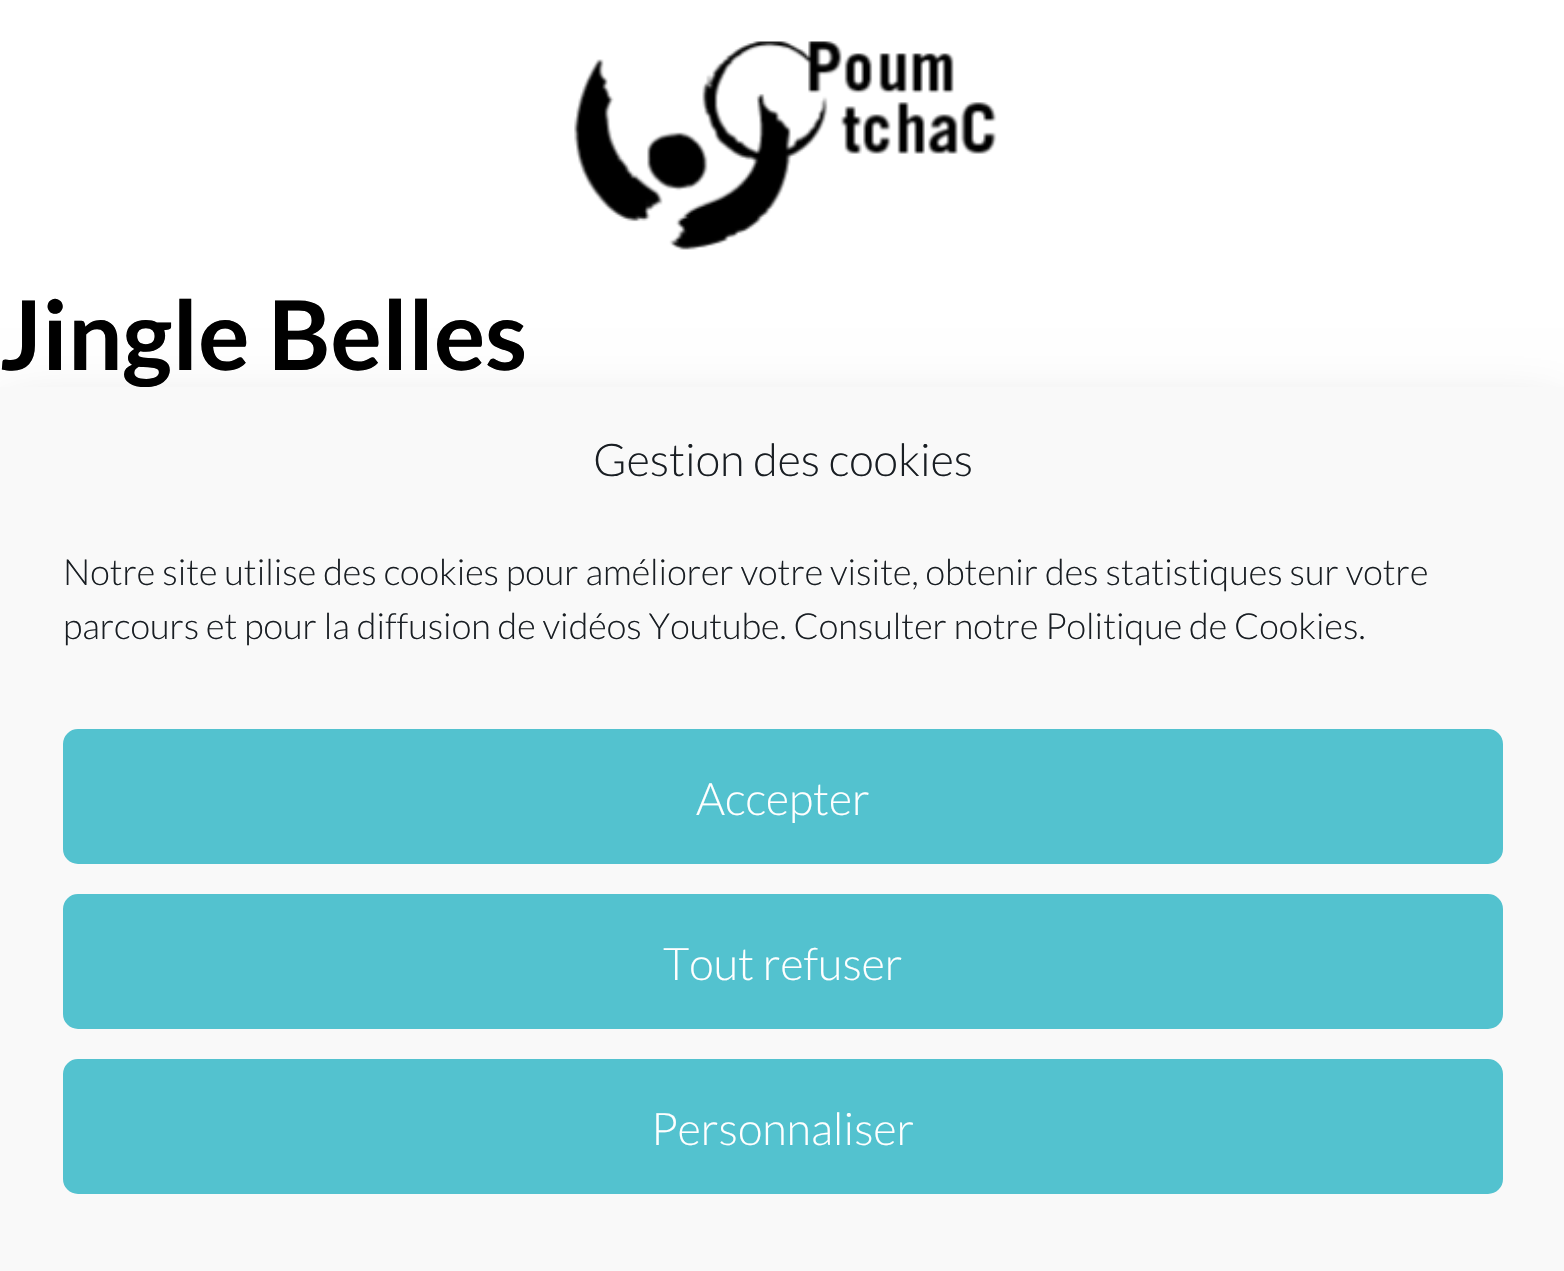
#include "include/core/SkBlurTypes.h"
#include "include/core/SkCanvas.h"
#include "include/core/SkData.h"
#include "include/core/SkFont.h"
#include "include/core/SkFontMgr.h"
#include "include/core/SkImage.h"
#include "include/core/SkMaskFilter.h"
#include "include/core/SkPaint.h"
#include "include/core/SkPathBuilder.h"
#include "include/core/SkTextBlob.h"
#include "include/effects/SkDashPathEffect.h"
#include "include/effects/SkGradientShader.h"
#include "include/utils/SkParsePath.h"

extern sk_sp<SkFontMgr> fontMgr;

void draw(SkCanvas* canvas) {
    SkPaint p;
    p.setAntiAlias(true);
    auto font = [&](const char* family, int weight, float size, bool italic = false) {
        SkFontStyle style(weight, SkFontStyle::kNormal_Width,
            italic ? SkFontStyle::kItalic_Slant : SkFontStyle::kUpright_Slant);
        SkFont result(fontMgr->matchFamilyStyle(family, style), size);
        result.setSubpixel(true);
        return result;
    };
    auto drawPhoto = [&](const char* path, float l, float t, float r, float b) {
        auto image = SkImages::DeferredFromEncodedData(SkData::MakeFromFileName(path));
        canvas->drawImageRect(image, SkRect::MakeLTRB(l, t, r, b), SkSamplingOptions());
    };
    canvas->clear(0xFFFFFFFF);
    drawPhoto("media/1.png", 574, 41, 997, 250);
    auto font1 = font("Lato", 700, 96);
    p.setColor(0xFF000000);
    canvas->drawString("Jingle Belles", 0, 370, font1, p);
    p.setColor(0x30000000);
    p.setMaskFilter(SkMaskFilter::MakeBlur(kNormal_SkBlurStyle, 30));
    canvas->drawRect(SkRect::MakeLTRB(0, 417, 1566, 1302), p);
    p.setMaskFilter(nullptr);
    p.setColor(0xFFF9F9F9);
    canvas->drawRect(SkRect::MakeLTRB(0, 387, 1564, 1271), p);
    auto font2 = font("Lato", 300, 45);
    p.setColor(0xFF191E23);
    canvas->drawString("Gestion des cookies", 593, 476, font2, p);
    auto font3 = font("Lato", 300, 36);
    canvas->drawString("Notre site utilise des cookies pour améliorer votre visite, obtenir des statistiques sur votre", 63, 585, font3, p);
    canvas->drawString("parcours et pour la diffusion de vidéos Youtube. Consulter notre Politique de Cookies.", 63, 639, font3, p);
    p.setColor(0xFF53C2CF);
    canvas->drawRoundRect(SkRect::MakeLTRB(64.5f, 730.5f, 1501.5f, 862.5f), 13.5f, 13.5f, p);
    p.setStyle(SkPaint::kStroke_Style);
    p.setStrokeWidth(3);
    canvas->drawRoundRect(SkRect::MakeLTRB(64.5f, 730.5f, 1501.5f, 862.5f), 13.5f, 13.5f, p);
    p.setStyle(SkPaint::kFill_Style);
    p.setColor(0xFFFFFFFF);
    canvas->drawString("Accepter", 696, 815, font2, p);
    p.setColor(0xFF53C2CF);
    canvas->drawRoundRect(SkRect::MakeLTRB(64.5f, 895.5f, 1501.5f, 1027.5f), 13.5f, 13.5f, p);
    p.setStyle(SkPaint::kStroke_Style);
    canvas->drawRoundRect(SkRect::MakeLTRB(64.5f, 895.5f, 1501.5f, 1027.5f), 13.5f, 13.5f, p);
    p.setStyle(SkPaint::kFill_Style);
    p.setColor(0xFFFFFFFF);
    canvas->drawString("Tout refuser", 663, 980, font2, p);
    p.setColor(0xFF53C2CF);
    canvas->drawRoundRect(SkRect::MakeLTRB(64.5f, 1060.5f, 1501.5f, 1192.5f), 13.5f, 13.5f, p);
    p.setStyle(SkPaint::kStroke_Style);
    canvas->drawRoundRect(SkRect::MakeLTRB(64.5f, 1060.5f, 1501.5f, 1192.5f), 13.5f, 13.5f, p);
    p.setStyle(SkPaint::kFill_Style);
    p.setColor(0xFFFFFFFF);
    canvas->drawString("Personnaliser", 651, 1145, font2, p);
}
